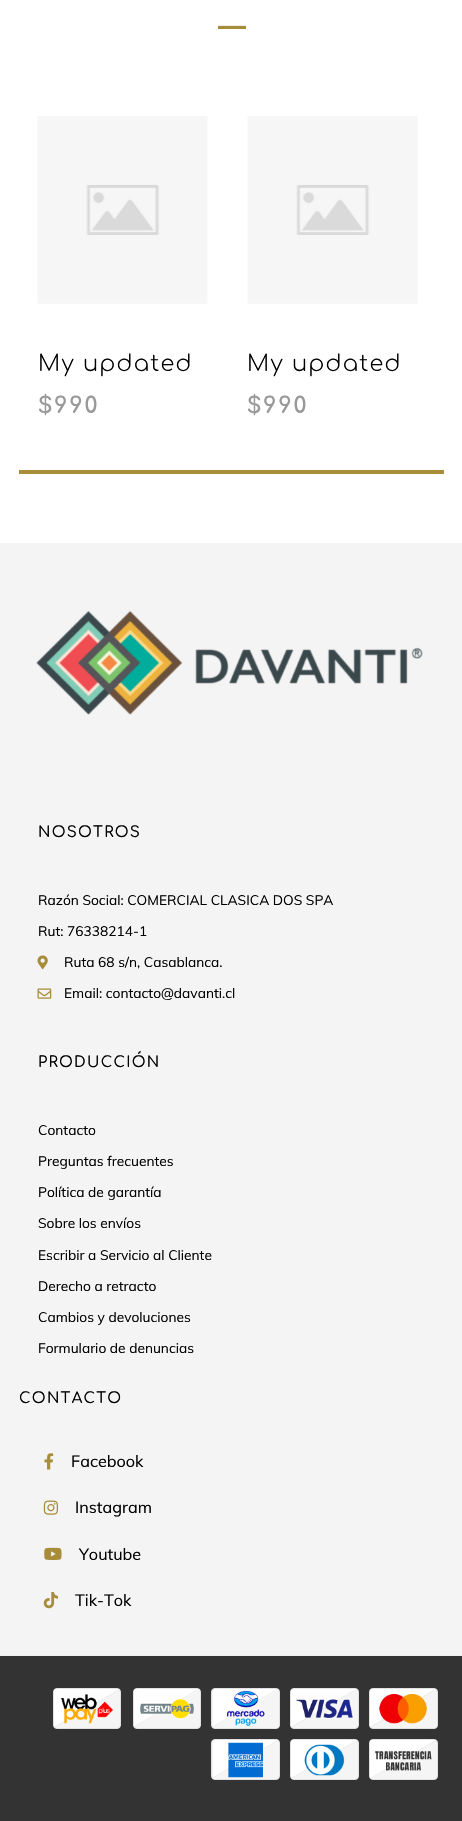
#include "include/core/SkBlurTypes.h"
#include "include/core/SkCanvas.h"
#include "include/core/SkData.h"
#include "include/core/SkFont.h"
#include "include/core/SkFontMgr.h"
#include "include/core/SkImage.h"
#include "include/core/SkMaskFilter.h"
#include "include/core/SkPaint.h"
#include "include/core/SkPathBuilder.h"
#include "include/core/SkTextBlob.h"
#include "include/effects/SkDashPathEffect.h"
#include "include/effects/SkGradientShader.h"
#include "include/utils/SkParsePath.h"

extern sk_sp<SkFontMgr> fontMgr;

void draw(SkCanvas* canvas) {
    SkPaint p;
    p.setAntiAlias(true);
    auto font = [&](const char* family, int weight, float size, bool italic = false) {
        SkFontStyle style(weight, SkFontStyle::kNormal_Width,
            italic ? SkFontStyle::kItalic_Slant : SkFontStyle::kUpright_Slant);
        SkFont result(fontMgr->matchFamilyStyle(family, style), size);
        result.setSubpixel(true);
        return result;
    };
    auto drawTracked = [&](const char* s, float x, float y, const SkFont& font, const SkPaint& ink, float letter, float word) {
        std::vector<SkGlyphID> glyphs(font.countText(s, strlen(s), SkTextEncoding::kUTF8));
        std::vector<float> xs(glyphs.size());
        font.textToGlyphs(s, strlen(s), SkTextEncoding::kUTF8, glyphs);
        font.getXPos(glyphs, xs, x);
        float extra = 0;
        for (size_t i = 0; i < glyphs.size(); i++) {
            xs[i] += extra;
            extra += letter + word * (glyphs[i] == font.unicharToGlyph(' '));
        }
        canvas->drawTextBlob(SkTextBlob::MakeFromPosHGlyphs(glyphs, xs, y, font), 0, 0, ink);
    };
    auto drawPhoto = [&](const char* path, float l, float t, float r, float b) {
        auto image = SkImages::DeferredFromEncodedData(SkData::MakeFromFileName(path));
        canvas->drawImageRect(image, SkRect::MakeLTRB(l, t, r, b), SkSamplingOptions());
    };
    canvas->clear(0xFFFFFFFF);
    {
        const struct { float l, t, r, b; SkColor color; } items[] = {
            {218, 26, 246, 29, 0xFFA78C39},
            {218, 25, 246, 26, 0xFFEEEEEE},
            {19, 470, 444, 474, 0xFFA78C39},
        };
        for (auto [l, t, r, b, color] : items) {
            p.setColor(color);
            canvas->drawRect(SkRect::MakeLTRB(l, t, r, b), p);
        }
    }
    drawPhoto("media/1.png", 37, 116, 208, 304);
    auto font1 = font("Comfortaa", 300, 22.5f);
    p.setColor(0xFF000000);
    drawTracked("My updated", 38, 371, font1, p, 1.25f, 0);
    auto font2 = font("Comfortaa", 700, 22.5f);
    p.setColor(0xFF999999);
    drawTracked("$990", 38, 413, font2, p, 2, 0);
    drawPhoto("media/2.png", 247, 116, 418, 304);
    p.setColor(0xFF000000);
    drawTracked("My updated", 247, 371, font1, p, 1.25f, 0);
    p.setColor(0xFF999999);
    drawTracked("$990", 247, 413, font2, p, 2, 0);
    p.setColor(0xFFF4F4F4);
    canvas->drawRect(SkRect::MakeLTRB(0, 543, 462, 1655), p);
    p.setColor(0xFFEEEEEE);
    canvas->drawRect(SkRect::MakeLTRB(0, 1655, 462, 1656), p);
    drawPhoto("media/3.png", 36, 610, 423, 715);
    auto font3 = font("Comfortaa", 500, 15);
    p.setColor(0xFF000000);
    drawTracked("NOSOTROS", 38, 837, font3, p, 1.25f, 0);
    auto font4 = font("Muli", 400, 13.75f);
    canvas->drawString("Razón Social: COMERCIAL CLASICA DOS SPA", 38, 905, font4, p);
    canvas->drawString("Rut: 76338214-1", 38, 936, font4, p);
    drawPhoto("media/4.png", 37, 955, 48, 970);
    canvas->drawString("Ruta 68 s/n, Casablanca.", 64, 967, font4, p);
    drawPhoto("media/5.png", 37, 988, 52, 999);
    canvas->drawString("Email: contacto@davanti.cl", 64, 998, font4, p);
    drawTracked("PRODUCCIÓN", 38, 1067, font3, p, 1.25f, 0);
    {
        const struct { const char* s; float x, y; } items[] = {
            {"Contacto", 38, 1135},
            {"Preguntas frecuentes", 38, 1166},
            {"Política de garantía", 38, 1197},
            {"Sobre los envíos", 38, 1228},
            {"Escribir a Servicio al Cliente", 38, 1260},
            {"Derecho a retracto", 38, 1291},
            {"Cambios y devoluciones", 38, 1322},
            {"Formulario de denuncias", 38, 1353},
        };
        for (auto [s, x, y] : items) {
            canvas->drawString(s, x, y, font4, p);
        }
    }
    drawTracked("CONTACTO", 19, 1403, font3, p, 1.25f, 0);
    drawPhoto("media/6.png", 44, 1453, 54, 1470);
    auto font5 = font("Muli", 400, 16.25f);
    canvas->drawString("Facebook", 71, 1467, font5, p);
    drawPhoto("media/7.png", 43, 1500, 58, 1515);
    canvas->drawString("Instagram", 75, 1513, font5, p);
    drawPhoto("media/8.png", 44, 1547, 62, 1560);
    canvas->drawString("Youtube", 79, 1560, font5, p);
    drawPhoto("media/9.png", 43, 1592, 58, 1609);
    canvas->drawString("Tik-Tok", 75, 1606, font5, p);
    p.setColor(0xFF333333);
    canvas->drawRect(SkRect::MakeLTRB(0, 1656, 462, 1821), p);
    p.setColor(0xFFF5F5F5);
    canvas->drawRoundRect(SkRect::MakeLTRB(53.5f, 1688.5f, 120.5f, 1728.5f), 3.5f, 3.5f, p);
    p.setStyle(SkPaint::kStroke_Style);
    p.setStrokeWidth(1);
    p.setColor(0xFFE1E1E1);
    canvas->drawRoundRect(SkRect::MakeLTRB(53.5f, 1688.5f, 120.5f, 1728.5f), 3.5f, 3.5f, p);
    p.setStyle(SkPaint::kFill_Style);
    p.setColor(0xFFFFFFFF);
    canvas->drawPath(SkPathBuilder().moveTo(56, 1689).lineTo(118, 1689).lineTo(120, 1690).lineTo(55, 1727).lineTo(54, 1726).lineTo(54, 1692).cubicTo(54, 1690, 55, 1689, 56, 1689).close().detach(), p);
    canvas->save();
    canvas->clipPath(SkPathBuilder().moveTo(56.5f, 1689).lineTo(117.5f, 1689).cubicTo(119, 1689, 120, 1690, 120, 1691.5f).lineTo(120, 1725.5f).cubicTo(120, 1727, 119, 1728, 117.5f, 1728).lineTo(56.5f, 1728).cubicTo(55, 1728, 54, 1727, 54, 1725.5f).lineTo(54, 1691.5f).cubicTo(54, 1690, 55, 1689, 56.5f, 1689).close().detach(), true);
    p.setStyle(SkPaint::kStroke_Style);
    p.setStrokeWidth(1.2f);
    p.setColor(0xFFEEEEEE);
    canvas->drawPath(SkPathBuilder().moveTo(77, 1571.5f).lineTo(139, 1678.5f).lineTo(31.5f, 1740.5f).lineTo(-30, 1633.5f).close().detach(), p);
    canvas->restore();
    drawPhoto("media/10.png", 61, 1694, 113, 1724);
    p.setStyle(SkPaint::kFill_Style);
    p.setColor(0xFFF5F5F5);
    canvas->drawRoundRect(SkRect::MakeLTRB(133.5f, 1688.5f, 200.5f, 1728.5f), 3.5f, 3.5f, p);
    p.setStyle(SkPaint::kStroke_Style);
    p.setStrokeWidth(1);
    p.setColor(0xFFE1E1E1);
    canvas->drawRoundRect(SkRect::MakeLTRB(133.5f, 1688.5f, 200.5f, 1728.5f), 3.5f, 3.5f, p);
    p.setStyle(SkPaint::kFill_Style);
    p.setColor(0xFFFFFFFF);
    canvas->drawPath(SkPathBuilder().moveTo(136, 1689).lineTo(198, 1689).lineTo(200, 1690).lineTo(135, 1727).lineTo(134, 1726).lineTo(134, 1692).cubicTo(134, 1690, 135, 1689, 136, 1689).close().detach(), p);
    canvas->save();
    canvas->clipPath(SkPathBuilder().moveTo(136.5f, 1689).lineTo(197.5f, 1689).cubicTo(199, 1689, 200, 1690, 200, 1691.5f).lineTo(200, 1725.5f).cubicTo(200, 1727, 199, 1728, 197.5f, 1728).lineTo(136.5f, 1728).cubicTo(135, 1728, 134, 1727, 134, 1725.5f).lineTo(134, 1691.5f).cubicTo(134, 1690, 135, 1689, 136.5f, 1689).close().detach(), true);
    p.setStyle(SkPaint::kStroke_Style);
    p.setStrokeWidth(1.2f);
    p.setColor(0xFFEEEEEE);
    canvas->drawPath(SkPathBuilder().moveTo(156, 1571.5f).lineTo(217.5f, 1678.5f).lineTo(110.5f, 1740.5f).lineTo(48.5f, 1633.5f).close().detach(), p);
    canvas->restore();
    drawPhoto("media/11.png", 140, 1698, 194, 1719);
    p.setStyle(SkPaint::kFill_Style);
    p.setColor(0xFFF5F5F5);
    canvas->drawRoundRect(SkRect::MakeLTRB(211.5f, 1688.5f, 279.5f, 1728.5f), 3.5f, 3.5f, p);
    p.setStyle(SkPaint::kStroke_Style);
    p.setStrokeWidth(1);
    p.setColor(0xFFE1E1E1);
    canvas->drawRoundRect(SkRect::MakeLTRB(211.5f, 1688.5f, 279.5f, 1728.5f), 3.5f, 3.5f, p);
    p.setStyle(SkPaint::kFill_Style);
    p.setColor(0xFFFFFFFF);
    canvas->drawPath(SkPathBuilder().moveTo(216, 1689).lineTo(277, 1689).lineTo(279, 1690).lineTo(214, 1727).lineTo(213, 1726).lineTo(213, 1692).cubicTo(213, 1690, 214, 1689, 216, 1689).close().detach(), p);
    canvas->save();
    canvas->clipPath(SkPathBuilder().moveTo(215.5f, 1689).lineTo(276.5f, 1689).cubicTo(278, 1689, 279, 1690, 279, 1691.5f).lineTo(279, 1725.5f).cubicTo(279, 1727, 278, 1728, 276.5f, 1728).lineTo(215.5f, 1728).cubicTo(214, 1728, 213, 1727, 213, 1725.5f).lineTo(213, 1691.5f).cubicTo(213, 1690, 214, 1689, 215.5f, 1689).close().detach(), true);
    p.setStyle(SkPaint::kStroke_Style);
    p.setStrokeWidth(1.2f);
    p.setColor(0xFFEEEEEE);
    canvas->drawPath(SkPathBuilder().moveTo(235, 1571.5f).lineTo(296.5f, 1678.5f).lineTo(189.5f, 1740.5f).lineTo(127.5f, 1633.5f).close().detach(), p);
    canvas->restore();
    drawPhoto("media/12.png", 227, 1690, 265, 1726);
    p.setStyle(SkPaint::kFill_Style);
    p.setColor(0xFFF5F5F5);
    canvas->drawRoundRect(SkRect::MakeLTRB(290.5f, 1688.5f, 358.5f, 1728.5f), 3.5f, 3.5f, p);
    p.setStyle(SkPaint::kStroke_Style);
    p.setStrokeWidth(1);
    p.setColor(0xFFE1E1E1);
    canvas->drawRoundRect(SkRect::MakeLTRB(290.5f, 1688.5f, 358.5f, 1728.5f), 3.5f, 3.5f, p);
    p.setStyle(SkPaint::kFill_Style);
    p.setColor(0xFFFFFFFF);
    canvas->drawPath(SkPathBuilder().moveTo(294, 1689).lineTo(356, 1689).lineTo(357, 1690).lineTo(292, 1727).lineTo(291, 1726).lineTo(291, 1692).cubicTo(291, 1690, 292, 1689, 294, 1689).close().detach(), p);
    canvas->save();
    canvas->clipPath(SkPathBuilder().moveTo(293.5f, 1689).lineTo(355.5f, 1689).cubicTo(357, 1689, 358, 1690, 358, 1691.5f).lineTo(358, 1725.5f).cubicTo(358, 1727, 357, 1728, 355.5f, 1728).lineTo(293.5f, 1728).cubicTo(292, 1728, 291, 1727, 291, 1725.5f).lineTo(291, 1691.5f).cubicTo(291, 1690, 292, 1689, 293.5f, 1689).close().detach(), true);
    p.setStyle(SkPaint::kStroke_Style);
    p.setStrokeWidth(1.2f);
    p.setColor(0xFFEEEEEE);
    canvas->drawPath(SkPathBuilder().moveTo(313.5f, 1571.5f).lineTo(375.5f, 1678.5f).lineTo(268.5f, 1740.5f).lineTo(206.5f, 1633.5f).close().detach(), p);
    canvas->restore();
    drawPhoto("media/13.png", 296, 1699, 353, 1718);
    p.setStyle(SkPaint::kFill_Style);
    p.setColor(0xFFF5F5F5);
    canvas->drawRoundRect(SkRect::MakeLTRB(369.5f, 1688.5f, 437.5f, 1728.5f), 3.5f, 3.5f, p);
    p.setStyle(SkPaint::kStroke_Style);
    p.setStrokeWidth(1);
    p.setColor(0xFFE1E1E1);
    canvas->drawRoundRect(SkRect::MakeLTRB(369.5f, 1688.5f, 437.5f, 1728.5f), 3.5f, 3.5f, p);
    p.setStyle(SkPaint::kFill_Style);
    p.setColor(0xFFFFFFFF);
    canvas->drawPath(SkPathBuilder().moveTo(372, 1689).lineTo(434, 1689).lineTo(436, 1690).lineTo(371, 1727).lineTo(370, 1726).lineTo(370, 1692).cubicTo(370, 1690, 371, 1689, 372, 1689).close().detach(), p);
    canvas->save();
    canvas->clipPath(SkPathBuilder().moveTo(372.5f, 1689).lineTo(433.5f, 1689).cubicTo(435, 1689, 436, 1690, 436, 1691.5f).lineTo(436, 1725.5f).cubicTo(436, 1727, 435, 1728, 433.5f, 1728).lineTo(372.5f, 1728).cubicTo(371, 1728, 370, 1727, 370, 1725.5f).lineTo(370, 1691.5f).cubicTo(370, 1690, 371, 1689, 372.5f, 1689).close().detach(), true);
    p.setStyle(SkPaint::kStroke_Style);
    p.setStrokeWidth(1.2f);
    p.setColor(0xFFEEEEEE);
    canvas->drawPath(SkPathBuilder().moveTo(392.5f, 1571.5f).lineTo(454.5f, 1678.5f).lineTo(347.5f, 1740.5f).lineTo(285.5f, 1633.5f).close().detach(), p);
    canvas->restore();
    drawPhoto("media/14.png", 379, 1694, 427, 1724);
    p.setStyle(SkPaint::kFill_Style);
    p.setColor(0xFFF5F5F5);
    canvas->drawRoundRect(SkRect::MakeLTRB(211.5f, 1739.5f, 279.5f, 1779.5f), 3.5f, 3.5f, p);
    p.setStyle(SkPaint::kStroke_Style);
    p.setStrokeWidth(1);
    p.setColor(0xFFE1E1E1);
    canvas->drawRoundRect(SkRect::MakeLTRB(211.5f, 1739.5f, 279.5f, 1779.5f), 3.5f, 3.5f, p);
    p.setStyle(SkPaint::kFill_Style);
    p.setColor(0xFFFFFFFF);
    canvas->drawPath(SkPathBuilder().moveTo(216, 1740).lineTo(277, 1740).lineTo(279, 1741).lineTo(214, 1779).cubicTo(213, 1778, 213, 1777, 213, 1776).lineTo(213, 1742).cubicTo(213, 1741, 214, 1740, 216, 1740).close().detach(), p);
    canvas->save();
    canvas->clipPath(SkPathBuilder().moveTo(215.5f, 1740).lineTo(276.5f, 1740).cubicTo(278, 1740, 279, 1741, 279, 1742.5f).lineTo(279, 1776.5f).cubicTo(279, 1778, 278, 1779, 276.5f, 1779).lineTo(215.5f, 1779).cubicTo(214, 1779, 213, 1778, 213, 1776.5f).lineTo(213, 1742.5f).cubicTo(213, 1741, 214, 1740, 215.5f, 1740).close().detach(), true);
    p.setStyle(SkPaint::kStroke_Style);
    p.setStrokeWidth(1.2f);
    p.setColor(0xFFEEEEEE);
    canvas->drawPath(SkPathBuilder().moveTo(235, 1622.5f).lineTo(296.5f, 1730).lineTo(189.5f, 1791.5f).lineTo(127.5f, 1684.5f).close().detach(), p);
    canvas->restore();
    drawPhoto("media/15.png", 228, 1742, 263, 1778);
    p.setStyle(SkPaint::kFill_Style);
    p.setColor(0xFFF5F5F5);
    canvas->drawRoundRect(SkRect::MakeLTRB(290.5f, 1739.5f, 358.5f, 1779.5f), 3.5f, 3.5f, p);
    p.setStyle(SkPaint::kStroke_Style);
    p.setStrokeWidth(1);
    p.setColor(0xFFE1E1E1);
    canvas->drawRoundRect(SkRect::MakeLTRB(290.5f, 1739.5f, 358.5f, 1779.5f), 3.5f, 3.5f, p);
    p.setStyle(SkPaint::kFill_Style);
    p.setColor(0xFFFFFFFF);
    canvas->drawPath(SkPathBuilder().moveTo(294, 1740).lineTo(356, 1740).lineTo(357, 1741).lineTo(292, 1779).cubicTo(292, 1778, 291, 1777, 291, 1776).lineTo(291, 1742).cubicTo(291, 1741, 292, 1740, 294, 1740).close().detach(), p);
    canvas->save();
    canvas->clipPath(SkPathBuilder().moveTo(293.5f, 1740).lineTo(355.5f, 1740).cubicTo(357, 1740, 358, 1741, 358, 1742.5f).lineTo(358, 1776.5f).cubicTo(358, 1778, 357, 1779, 355.5f, 1779).lineTo(293.5f, 1779).cubicTo(292, 1779, 291, 1778, 291, 1776.5f).lineTo(291, 1742.5f).cubicTo(291, 1741, 292, 1740, 293.5f, 1740).close().detach(), true);
    p.setStyle(SkPaint::kStroke_Style);
    p.setStrokeWidth(1.2f);
    p.setColor(0xFFEEEEEE);
    canvas->drawPath(SkPathBuilder().moveTo(313.5f, 1622.5f).lineTo(375.5f, 1730).lineTo(268.5f, 1791.5f).lineTo(206.5f, 1684.5f).close().detach(), p);
    canvas->restore();
    drawPhoto("media/16.png", 304, 1744, 345, 1776);
    p.setStyle(SkPaint::kFill_Style);
    p.setColor(0xFFF5F5F5);
    canvas->drawRoundRect(SkRect::MakeLTRB(369.5f, 1739.5f, 437.5f, 1779.5f), 3.5f, 3.5f, p);
    p.setStyle(SkPaint::kStroke_Style);
    p.setStrokeWidth(1);
    p.setColor(0xFFE1E1E1);
    canvas->drawRoundRect(SkRect::MakeLTRB(369.5f, 1739.5f, 437.5f, 1779.5f), 3.5f, 3.5f, p);
    p.setStyle(SkPaint::kFill_Style);
    p.setColor(0xFFFFFFFF);
    canvas->drawPath(SkPathBuilder().moveTo(372, 1740).lineTo(434, 1740).lineTo(436, 1741).lineTo(371, 1779).cubicTo(371, 1778, 370, 1777, 370, 1776).lineTo(370, 1742).cubicTo(370, 1741, 371, 1740, 372, 1740).close().detach(), p);
    canvas->save();
    canvas->clipPath(SkPathBuilder().moveTo(372.5f, 1740).lineTo(433.5f, 1740).cubicTo(435, 1740, 436, 1741, 436, 1742.5f).lineTo(436, 1776.5f).cubicTo(436, 1778, 435, 1779, 433.5f, 1779).lineTo(372.5f, 1779).cubicTo(371, 1779, 370, 1778, 370, 1776.5f).lineTo(370, 1742.5f).cubicTo(370, 1741, 371, 1740, 372.5f, 1740).close().detach(), true);
    p.setStyle(SkPaint::kStroke_Style);
    p.setStrokeWidth(1.2f);
    p.setColor(0xFFEEEEEE);
    canvas->drawPath(SkPathBuilder().moveTo(392.5f, 1622.5f).lineTo(454.5f, 1730).lineTo(347.5f, 1791.5f).lineTo(285.5f, 1684.5f).close().detach(), p);
    canvas->restore();
    drawPhoto("media/17.png", 374, 1750, 432, 1771);
}
